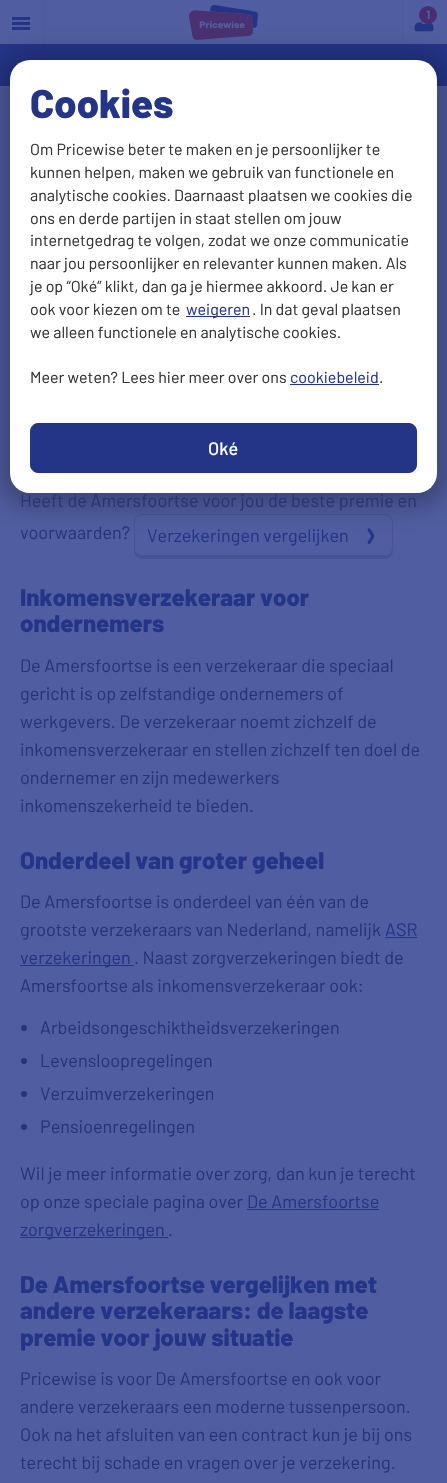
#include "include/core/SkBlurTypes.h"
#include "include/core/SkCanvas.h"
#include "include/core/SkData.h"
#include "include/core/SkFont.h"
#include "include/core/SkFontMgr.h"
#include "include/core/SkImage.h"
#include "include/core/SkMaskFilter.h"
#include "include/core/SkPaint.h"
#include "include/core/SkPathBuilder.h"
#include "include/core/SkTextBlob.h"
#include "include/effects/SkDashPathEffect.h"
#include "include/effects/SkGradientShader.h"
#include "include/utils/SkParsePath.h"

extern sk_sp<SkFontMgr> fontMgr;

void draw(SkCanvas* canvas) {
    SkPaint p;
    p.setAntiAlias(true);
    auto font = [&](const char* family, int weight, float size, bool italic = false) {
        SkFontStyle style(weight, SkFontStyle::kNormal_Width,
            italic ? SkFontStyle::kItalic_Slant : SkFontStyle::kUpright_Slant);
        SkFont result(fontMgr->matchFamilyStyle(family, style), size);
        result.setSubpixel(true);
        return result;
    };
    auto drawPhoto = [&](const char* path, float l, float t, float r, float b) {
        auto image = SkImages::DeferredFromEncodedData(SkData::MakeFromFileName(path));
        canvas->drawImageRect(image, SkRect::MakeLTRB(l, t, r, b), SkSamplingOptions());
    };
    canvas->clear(0xFF505DA0);
    {
        const struct { float l, t, r, b; SkColor color; } items[] = {
            {43, 0, 44, 44, 0xFF4C5A9C},
            {12, 22, 30, 25, 0xFF243588},
            {12, 17, 30, 20, 0xFF243588},
            {12, 27, 30, 30, 0xFF243588},
        };
        for (auto [l, t, r, b, color] : items) {
            p.setColor(color);
            canvas->drawRect(SkRect::MakeLTRB(l, t, r, b), p);
        }
    }
    drawPhoto("media/1.png", 189, 5, 258, 40);
    p.setColor(0xFF4C5A9C);
    canvas->drawRect(SkRect::MakeLTRB(402, 0, 403, 44), p);
    drawPhoto("media/2.png", 414, 14, 434, 32);
    p.setColor(0xFF4A2C71);
    canvas->drawCircle(428, 15, 9, p);
    auto font1 = font("Barlow", 700, 12);
    p.setColor(0xFF505DA0);
    canvas->drawString("1", 426, 19, font1, p);
    p.setColor(0xFF243588);
    canvas->drawRect(SkRect::MakeLTRB(0, 44, 447, 86), p);
    p.setColor(0xFF455395);
    canvas->drawPath(SkPathBuilder().moveTo(134, 548).lineTo(134, 551).cubicTo(134, 555, 138, 559, 142, 559).lineTo(385, 559).cubicTo(389, 559, 393, 555, 393, 551).lineTo(393, 548).cubicTo(393, 552, 389, 556, 385, 556).lineTo(142, 556).cubicTo(138, 556, 134, 552, 134, 548).close().detach(), p);
    p.setColor(0xFF505DA0);
    canvas->drawRoundRect(SkRect::MakeLTRB(134.5f, 514.5f, 392.5f, 555.5f), 7.5f, 7.5f, p);
    p.setStyle(SkPaint::kStroke_Style);
    p.setStrokeWidth(1);
    p.setColor(0xFF455395);
    canvas->drawRoundRect(SkRect::MakeLTRB(134.5f, 514.5f, 392.5f, 555.5f), 7.5f, 7.5f, p);
    drawPhoto("media/3.png", 367, 528, 375, 544);
    p.setStyle(SkPaint::kFill_Style);
    p.setColor(0x40000000);
    p.setMaskFilter(SkMaskFilter::MakeBlur(kNormal_SkBlurStyle, 12));
    canvas->drawRoundRect(SkRect::MakeLTRB(0, 54, 447, 507), 30, 30, p);
    p.setMaskFilter(nullptr);
    p.setColor(0xFFFFFFFF);
    canvas->drawRoundRect(SkRect::MakeLTRB(10, 60, 437, 493), 20, 20, p);
    auto font2 = font("Barlow", 800, 40);
    p.setColor(0xFF243588);
    canvas->drawString("Cookies", 30, 118, font2, p);
    auto font3 = font("Barlow", 400, 16);
    p.setColor(0xFF333333);
    {
        const struct { const char* s; float x, y; } items[] = {
            {"Om Pricewise beter te maken en je persoonlijker te", 30, 155},
            {"kunnen helpen, maken we gebruik van functionele en", 30, 178},
            {"analytische cookies. Daarnaast plaatsen we cookies die", 30, 201},
            {"ons en derde partijen in staat stellen om jouw", 30, 224},
            {"internetgedrag te volgen, zodat we onze communicatie", 30, 246},
            {"naar jou persoonlijker en relevanter kunnen maken. Als", 30, 269},
            {"je op “Oké” klikt, dan ga je hiermee akkoord. Je kan er", 30, 292},
            {"ook voor kiezen om te", 30, 315},
        };
        for (auto [s, x, y] : items) {
            canvas->drawString(s, x, y, font3, p);
        }
    }
    p.setColor(0xFF243588);
    canvas->drawRect(SkRect::MakeLTRB(186, 316, 250, 317), p);
    canvas->drawString("weigeren", 186, 315, font3, p);
    p.setColor(0xFF333333);
    {
        const struct { const char* s; float x, y; } items[] = {
            {". In dat geval plaatsen", 252, 315},
            {"we alleen functionele en analytische cookies.", 30, 338},
            {"Meer weten? Lees hier meer over ons", 30, 383},
        };
        for (auto [s, x, y] : items) {
            canvas->drawString(s, x, y, font3, p);
        }
    }
    p.setColor(0xFF243588);
    canvas->drawString("cookiebeleid", 290, 383, font3, p);
    canvas->drawRect(SkRect::MakeLTRB(290, 384, 379, 385), p);
    p.setColor(0xFF333333);
    canvas->drawString(".", 379, 383, font3, p);
    p.setColor(0xFF243588);
    canvas->drawRoundRect(SkRect::MakeLTRB(30.5f, 423.5f, 416.5f, 472.5f), 7.5f, 7.5f, p);
    p.setStyle(SkPaint::kStroke_Style);
    canvas->drawRoundRect(SkRect::MakeLTRB(30.5f, 423.5f, 416.5f, 472.5f), 7.5f, 7.5f, p);
    auto font4 = font("Barlow", 500, 18);
    p.setStyle(SkPaint::kFill_Style);
    p.setColor(0xFFFFFFFF);
    canvas->drawString("Oké", 208, 455, font4, p);
    auto font5 = font("Barlow", 400, 18);
    p.setColor(0xFF273577);
    canvas->drawString("Heeft de Amersfoortse voor jou de beste premie en", 20, 507, font5, p);
    canvas->drawString("voorwaarden?", 20, 539, font5, p);
    p.setColor(0xFF243588);
    canvas->drawString("Verzekeringen vergelijken", 147, 542, font5, p);
    auto font6 = font("Barlow", 800, 24);
    canvas->drawString("Inkomensverzekeraar voor", 20, 606, font6, p);
    canvas->drawString("ondernemers", 20, 632, font6, p);
    p.setColor(0xFF273577);
    {
        const struct { const char* s; float x, y; } items[] = {
            {"De Amersfoortse is een verzekeraar die speciaal", 20, 672},
            {"gericht is op zelfstandige ondernemers of", 20, 700},
            {"werkgevers. De verzekeraar noemt zichzelf de", 20, 728},
            {"inkomensverzekeraar en stellen zichzelf ten doel de", 20, 756},
            {"ondernemer en zijn medewerkers", 20, 784},
            {"inkomenszekerheid te bieden.", 20, 812},
        };
        for (auto [s, x, y] : items) {
            canvas->drawString(s, x, y, font5, p);
        }
    }
    p.setColor(0xFF243588);
    canvas->drawString("Onderdeel van groter geheel", 20, 869, font6, p);
    p.setColor(0xFF273577);
    canvas->drawString("De Amersfoortse is onderdeel van één van de", 20, 908, font5, p);
    canvas->drawString("grootste verzekeraars van Nederland, namelijk", 20, 936, font5, p);
    p.setColor(0xFF243588);
    canvas->drawString("ASR", 385, 936, font5, p);
    canvas->drawRect(SkRect::MakeLTRB(385, 937, 417, 938), p);
    canvas->drawRect(SkRect::MakeLTRB(20, 965, 134, 966), p);
    canvas->drawString("verzekeringen", 20, 964, font5, p);
    p.setColor(0xFF273577);
    canvas->drawString(". Naast zorgverzekeringen biedt de", 134, 964, font5, p);
    canvas->drawString("Amersfoortse als inkomensverzekeraar ook:", 20, 992, font5, p);
    canvas->drawCircle(24, 1028, 3, p);
    canvas->drawString("Arbeidsongeschiktheidsverzekeringen", 40, 1034, font5, p);
    canvas->drawCircle(24, 1061, 3, p);
    canvas->drawString("Levensloopregelingen", 40, 1067, font5, p);
    canvas->drawCircle(24, 1094, 3, p);
    canvas->drawString("Verzuimverzekeringen", 40, 1100, font5, p);
    canvas->drawCircle(24, 1127, 3, p);
    {
        const struct { const char* s; float x, y; } items[] = {
            {"Pensioenregelingen", 40, 1133},
            {"Wil je meer informatie over zorg, dan kun je terecht", 20, 1180},
            {"op onze speciale pagina over", 20, 1208},
        };
        for (auto [s, x, y] : items) {
            canvas->drawString(s, x, y, font5, p);
        }
    }
    p.setColor(0xFF243588);
    canvas->drawString("De Amersfoortse", 247, 1208, font5, p);
    canvas->drawRect(SkRect::MakeLTRB(247, 1209, 379, 1210), p);
    canvas->drawRect(SkRect::MakeLTRB(20, 1237, 168, 1238), p);
    canvas->drawString("zorgverzekeringen", 20, 1236, font5, p);
    p.setColor(0xFF273577);
    canvas->drawString(".", 168, 1236, font5, p);
    p.setColor(0xFF243588);
    {
        const struct { const char* s; float x, y; } items[] = {
            {"De Amersfoortse vergelijken met", 20, 1293},
            {"andere verzekeraars: de laagste", 20, 1319},
            {"premie voor jouw situatie", 20, 1346},
        };
        for (auto [s, x, y] : items) {
            canvas->drawString(s, x, y, font6, p);
        }
    }
    p.setColor(0xFF273577);
    {
        const struct { const char* s; float x, y; } items[] = {
            {"Pricewise is voor De Amersfoortse en ook voor", 20, 1385},
            {"andere verzekeraars een moderne tussenpersoon.", 20, 1413},
            {"Ook na het afsluiten van een contract kun je bij ons", 20, 1441},
            {"terecht bij schade en vragen over je verzekering.", 20, 1469},
        };
        for (auto [s, x, y] : items) {
            canvas->drawString(s, x, y, font5, p);
        }
    }
}
